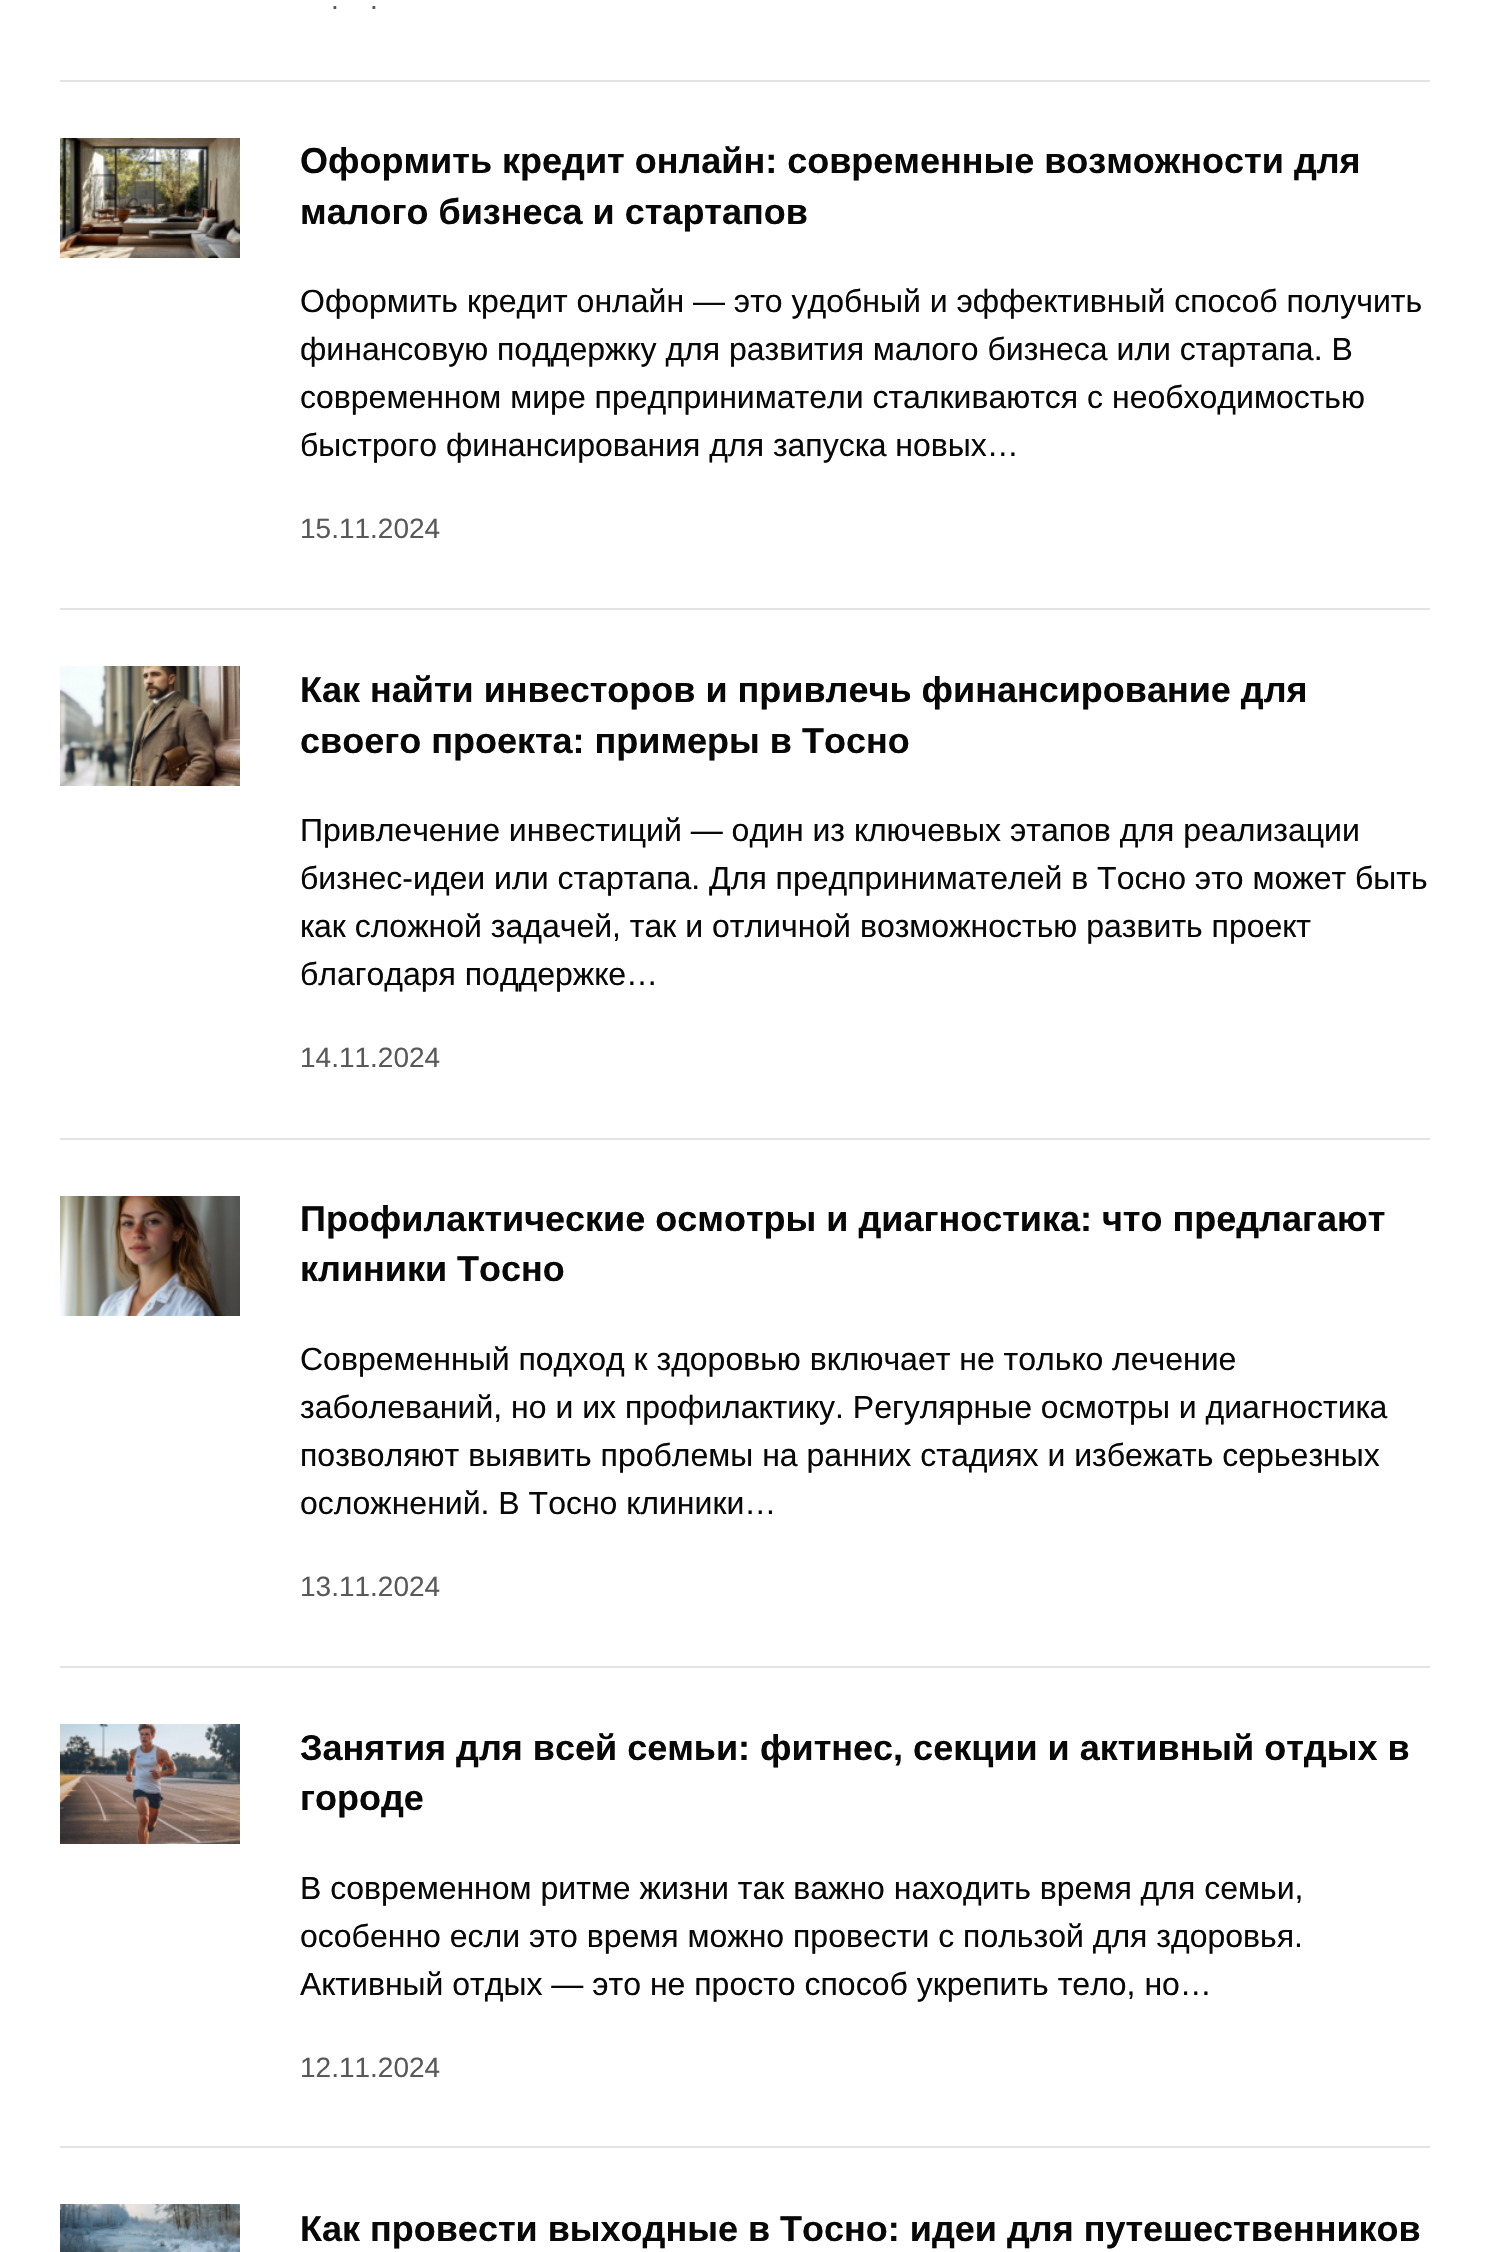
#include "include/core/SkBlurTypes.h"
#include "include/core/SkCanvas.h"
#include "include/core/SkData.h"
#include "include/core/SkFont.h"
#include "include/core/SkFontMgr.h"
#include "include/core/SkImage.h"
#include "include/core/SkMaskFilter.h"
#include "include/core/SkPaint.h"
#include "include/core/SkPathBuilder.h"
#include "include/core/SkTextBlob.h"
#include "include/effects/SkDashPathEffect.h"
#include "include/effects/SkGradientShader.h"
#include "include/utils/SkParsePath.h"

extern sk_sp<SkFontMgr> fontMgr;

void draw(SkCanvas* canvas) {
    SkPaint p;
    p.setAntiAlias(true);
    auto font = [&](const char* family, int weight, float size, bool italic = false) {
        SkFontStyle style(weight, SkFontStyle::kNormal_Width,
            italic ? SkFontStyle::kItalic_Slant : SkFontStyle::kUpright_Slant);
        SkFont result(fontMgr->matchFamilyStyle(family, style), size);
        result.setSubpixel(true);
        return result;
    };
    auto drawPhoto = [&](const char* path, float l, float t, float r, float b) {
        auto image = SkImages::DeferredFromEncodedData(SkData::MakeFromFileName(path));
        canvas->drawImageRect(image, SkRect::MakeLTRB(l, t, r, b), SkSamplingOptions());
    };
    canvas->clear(0xFFFFFFFF);
    auto font1 = font("Liberation Sans", 400, 28);
    p.setColor(0xFF595959);
    canvas->drawString(".", 331, 9, font1, p);
    canvas->drawString(".", 370, 9, font1, p);
    p.setColor(0xFFE3E3E3);
    canvas->drawRect(SkRect::MakeLTRB(60, 80, 1430, 82), p);
    drawPhoto("media/1.png", 60, 138, 240, 258);
    auto font2 = font("Liberation Sans", 700, 36);
    p.setColor(0xFF080808);
    canvas->drawString("Оформить кредит онлайн: современные возможности для", 300, 173, font2, p);
    canvas->drawString("малого бизнеса и стартапов", 300, 224, font2, p);
    auto font3 = font("Liberation Sans", 400, 32);
    {
        const struct { const char* s; float x, y; } items[] = {
            {"Оформить кредит онлайн — это удобный и эффективный способ получить", 300, 312},
            {"финансовую поддержку для развития малого бизнеса или стартапа. В", 300, 360},
            {"современном мире предприниматели сталкиваются с необходимостью", 300, 408},
            {"быстрого финансирования для запуска новых…", 300, 456},
        };
        for (auto [s, x, y] : items) {
            canvas->drawString(s, x, y, font3, p);
        }
    }
    p.setColor(0xFF595959);
    canvas->drawString("15.11.2024", 300, 538, font1, p);
    p.setColor(0xFFE3E3E3);
    canvas->drawRect(SkRect::MakeLTRB(60, 608, 1430, 610), p);
    drawPhoto("media/2.png", 60, 666, 240, 786);
    p.setColor(0xFF080808);
    canvas->drawString("Как найти инвесторов и привлечь финансирование для", 300, 702, font2, p);
    canvas->drawString("своего проекта: примеры в Тосно", 300, 753, font2, p);
    {
        const struct { const char* s; float x, y; } items[] = {
            {"Привлечение инвестиций — один из ключевых этапов для реализации", 300, 841},
            {"бизнес-идеи или стартапа. Для предпринимателей в Тосно это может быть", 300, 889},
            {"как сложной задачей, так и отличной возможностью развить проект", 300, 937},
            {"благодаря поддержке…", 300, 985},
        };
        for (auto [s, x, y] : items) {
            canvas->drawString(s, x, y, font3, p);
        }
    }
    p.setColor(0xFF595959);
    canvas->drawString("14.11.2024", 300, 1067, font1, p);
    p.setColor(0xFFE3E3E3);
    canvas->drawRect(SkRect::MakeLTRB(60, 1138, 1430, 1140), p);
    drawPhoto("media/3.png", 60, 1196, 240, 1316);
    p.setColor(0xFF080808);
    canvas->drawString("Профилактические осмотры и диагностика: что предлагают", 300, 1231, font2, p);
    canvas->drawString("клиники Тосно", 300, 1281, font2, p);
    {
        const struct { const char* s; float x, y; } items[] = {
            {"Современный подход к здоровью включает не только лечение", 300, 1370},
            {"заболеваний, но и их профилактику. Регулярные осмотры и диагностика", 300, 1418},
            {"позволяют выявить проблемы на ранних стадиях и избежать серьезных", 300, 1466},
            {"осложнений. В Тосно клиники…", 300, 1514},
        };
        for (auto [s, x, y] : items) {
            canvas->drawString(s, x, y, font3, p);
        }
    }
    p.setColor(0xFF595959);
    canvas->drawString("13.11.2024", 300, 1596, font1, p);
    p.setColor(0xFFE3E3E3);
    canvas->drawRect(SkRect::MakeLTRB(60, 1666, 1430, 1668), p);
    drawPhoto("media/4.png", 60, 1724, 240, 1844);
    p.setColor(0xFF080808);
    canvas->drawString("Занятия для всей семьи: фитнес, секции и активный отдых в", 300, 1760, font2, p);
    canvas->drawString("городе", 300, 1810, font2, p);
    {
        const struct { const char* s; float x, y; } items[] = {
            {"В современном ритме жизни так важно находить время для семьи,", 300, 1899},
            {"особенно если это время можно провести с пользой для здоровья.", 300, 1947},
            {"Активный отдых — это не просто способ укрепить тело, но…", 300, 1995},
        };
        for (auto [s, x, y] : items) {
            canvas->drawString(s, x, y, font3, p);
        }
    }
    p.setColor(0xFF595959);
    canvas->drawString("12.11.2024", 300, 2077, font1, p);
    p.setColor(0xFFE3E3E3);
    canvas->drawRect(SkRect::MakeLTRB(60, 2146, 1430, 2148), p);
    drawPhoto("media/5.png", 60, 2204, 240, 2252);
    p.setColor(0xFF080808);
    canvas->drawString("Как провести выходные в Тосно: идеи для путешественников", 300, 2241, font2, p);
}
